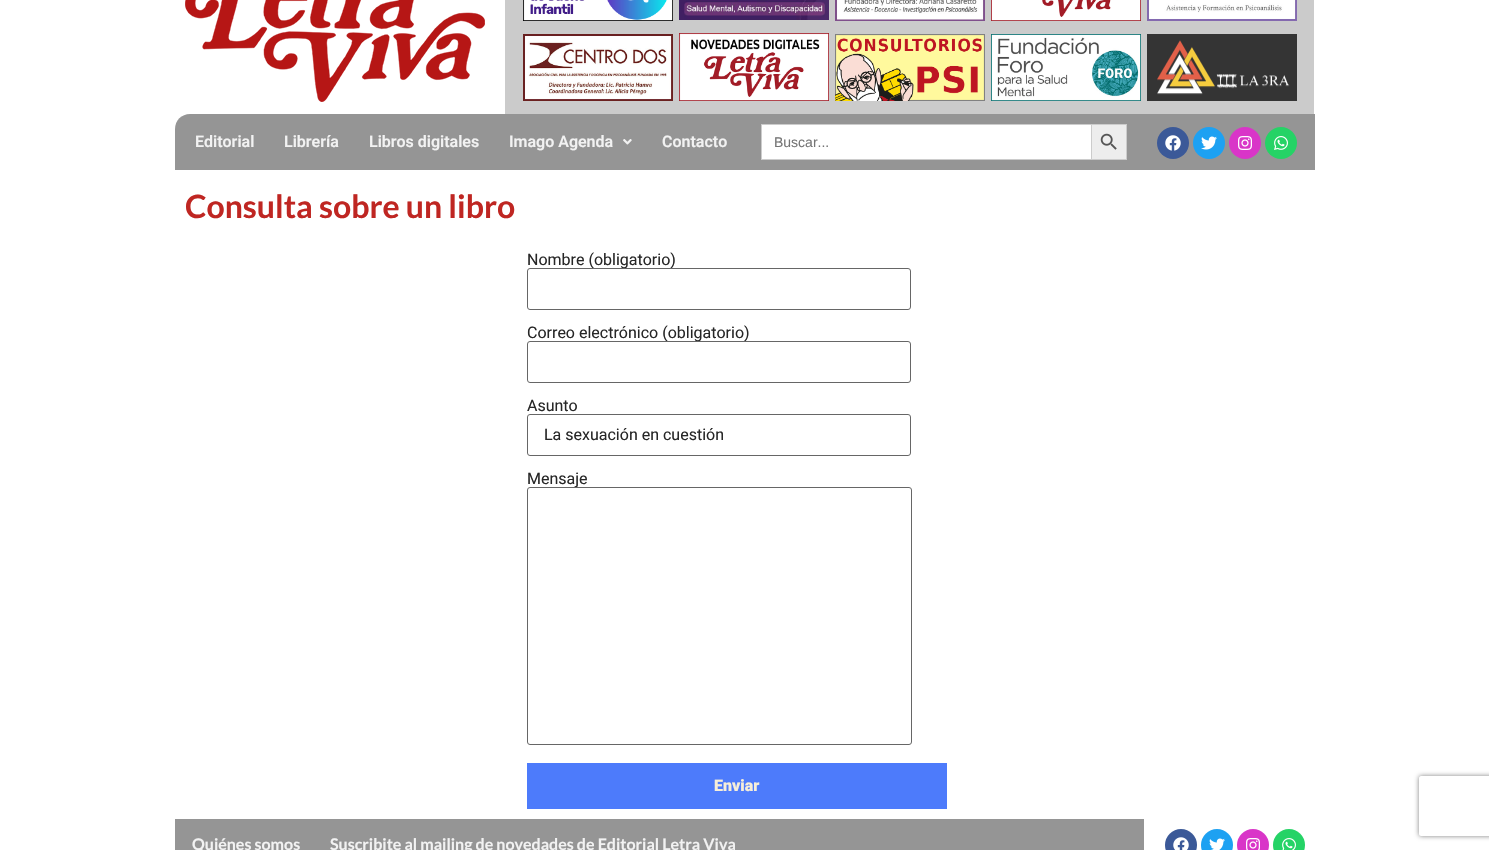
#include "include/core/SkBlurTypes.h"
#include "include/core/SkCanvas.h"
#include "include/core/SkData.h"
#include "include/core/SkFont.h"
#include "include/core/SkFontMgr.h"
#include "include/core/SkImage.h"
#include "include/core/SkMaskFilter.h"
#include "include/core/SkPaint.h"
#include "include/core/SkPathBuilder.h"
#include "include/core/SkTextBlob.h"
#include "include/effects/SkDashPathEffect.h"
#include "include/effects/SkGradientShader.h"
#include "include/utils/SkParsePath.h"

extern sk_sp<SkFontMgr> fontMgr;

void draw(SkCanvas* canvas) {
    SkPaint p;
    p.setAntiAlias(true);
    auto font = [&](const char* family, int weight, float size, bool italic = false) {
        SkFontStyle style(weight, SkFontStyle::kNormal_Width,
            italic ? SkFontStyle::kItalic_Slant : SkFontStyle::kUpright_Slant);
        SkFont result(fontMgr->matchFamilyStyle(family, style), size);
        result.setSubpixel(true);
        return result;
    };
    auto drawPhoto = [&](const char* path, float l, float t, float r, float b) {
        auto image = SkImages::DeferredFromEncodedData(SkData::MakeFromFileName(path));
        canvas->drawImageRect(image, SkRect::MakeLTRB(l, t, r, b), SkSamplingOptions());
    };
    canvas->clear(0xFFFFFFFF);
    drawPhoto("media/1.png", 185, 0, 485, 102);
    p.setColor(0xFFCBCBCB);
    canvas->drawRect(SkRect::MakeLTRB(505, 0, 1314, 114), p);
    drawPhoto("media/2.png", 523, 0, 673, 21);
    drawPhoto("media/3.png", 679, 0, 829, 20);
    drawPhoto("media/4.png", 835, 0, 985, 21);
    drawPhoto("media/5.png", 991, 0, 1141, 21);
    drawPhoto("media/6.png", 1147, 0, 1297, 21);
    drawPhoto("media/7.png", 523, 34, 673, 101);
    drawPhoto("media/8.png", 679, 33, 829, 101);
    drawPhoto("media/9.png", 835, 34, 985, 101);
    drawPhoto("media/10.png", 991, 34, 1141, 101);
    drawPhoto("media/11.png", 1147, 34, 1297, 101);
    p.setColor(0xFF959595);
    canvas->drawPath(SkPathBuilder().moveTo(190, 114).lineTo(1315, 114).lineTo(1315, 170).lineTo(175, 170).lineTo(175, 129).cubicTo(175, 120.5f, 181.5f, 114, 190, 114).close().detach(), p);
    auto font1 = font("Roboto", 600, 16);
    p.setColor(0xFFF2F2F2);
    {
        const struct { const char* s; float x, y; } items[] = {
            {"Editorial", 195, 147},
            {"Librería", 284, 147},
            {"Libros digitales", 369, 147},
            {"Imago Agenda", 509, 147},
        };
        for (auto [s, x, y] : items) {
            canvas->drawString(s, x, y, font1, p);
        }
    }
    drawPhoto("media/12.png", 623, 139, 632, 145);
    canvas->drawString("Contacto", 662, 147, font1, p);
    {
        const struct { float l, t, r, b; SkColor color; } items[] = {
            {762, 125, 1091, 159, 0xFFFFFFFF},
            {761, 124, 1091, 125, 0xFFCCCCCC},
            {761, 159, 1091, 160, 0xFFCCCCCC},
            {761, 124, 762, 160, 0xFFCCCCCC},
        };
        for (auto [l, t, r, b, color] : items) {
            p.setColor(color);
            canvas->drawRect(SkRect::MakeLTRB(l, t, r, b), p);
        }
    }
    auto font2 = font("Liberation Sans", 400, 14);
    p.setColor(0xFF757575);
    canvas->drawString("Buscar...", 774, 147, font2, p);
    p.setColor(0xFFEDEDED);
    canvas->drawRect(SkRect::MakeLTRB(1091.5f, 124.5f, 1126.5f, 159.5f), p);
    p.setStyle(SkPaint::kStroke_Style);
    p.setStrokeWidth(1);
    p.setColor(0xFFCCCCCC);
    canvas->drawRect(SkRect::MakeLTRB(1091.5f, 124.5f, 1126.5f, 159.5f), p);
    drawPhoto("media/13.png", 1100, 133, 1117, 150);
    p.setStyle(SkPaint::kFill_Style);
    p.setColor(0xFF3B5998);
    canvas->drawCircle(1173, 143, 16, p);
    drawPhoto("media/14.png", 1165, 135, 1181, 151);
    p.setColor(0xFF1DA1F2);
    canvas->drawCircle(1209, 143, 16, p);
    drawPhoto("media/15.png", 1201, 136, 1217, 150);
    p.setColor(0xFFD935C8);
    canvas->drawCircle(1245, 143, 16, p);
    drawPhoto("media/16.png", 1238, 136, 1252, 150);
    p.setColor(0xFF25D366);
    canvas->drawCircle(1281, 143, 16, p);
    drawPhoto("media/17.png", 1274, 136, 1288, 150);
    auto font3 = font("Lato", 700, 32);
    p.setColor(0xFFBF2622);
    canvas->drawString("Consulta sobre un libro", 185, 218, font3, p);
    auto font4 = font("Roboto", 400, 16);
    p.setColor(0xFF272727);
    canvas->drawString("Nombre (obligatorio)", 527, 265, font4, p);
    p.setColor(0xFFFFFFFF);
    canvas->drawRoundRect(SkRect::MakeLTRB(527.5f, 268.5f, 910.5f, 309.5f), 2.5f, 2.5f, p);
    p.setStyle(SkPaint::kStroke_Style);
    p.setColor(0xFF666666);
    canvas->drawRoundRect(SkRect::MakeLTRB(527.5f, 268.5f, 910.5f, 309.5f), 2.5f, 2.5f, p);
    p.setStyle(SkPaint::kFill_Style);
    p.setColor(0xFF272727);
    canvas->drawString("Correo electrónico (obligatorio)", 527, 338, font4, p);
    p.setColor(0xFFFFFFFF);
    canvas->drawRoundRect(SkRect::MakeLTRB(527.5f, 341.5f, 910.5f, 382.5f), 2.5f, 2.5f, p);
    p.setStyle(SkPaint::kStroke_Style);
    p.setColor(0xFF666666);
    canvas->drawRoundRect(SkRect::MakeLTRB(527.5f, 341.5f, 910.5f, 382.5f), 2.5f, 2.5f, p);
    p.setStyle(SkPaint::kFill_Style);
    p.setColor(0xFF272727);
    canvas->drawString("Asunto", 527, 411, font4, p);
    p.setStyle(SkPaint::kStroke_Style);
    p.setColor(0xFF666666);
    canvas->drawRoundRect(SkRect::MakeLTRB(527.5f, 414.5f, 910.5f, 455.5f), 2.5f, 2.5f, p);
    p.setStyle(SkPaint::kFill_Style);
    p.setColor(0xFF272727);
    canvas->drawString("La sexuación en cuestión", 544, 440, font4, p);
    canvas->drawString("Mensaje", 527, 484, font4, p);
    p.setColor(0xFFFFFFFF);
    canvas->drawRoundRect(SkRect::MakeLTRB(527.5f, 487.5f, 911.5f, 744.5f), 2.5f, 2.5f, p);
    p.setStyle(SkPaint::kStroke_Style);
    p.setColor(0xFF666666);
    canvas->drawRoundRect(SkRect::MakeLTRB(527.5f, 487.5f, 911.5f, 744.5f), 2.5f, 2.5f, p);
    p.setStyle(SkPaint::kFill_Style);
    p.setColor(0xFF4D7BFB);
    canvas->drawRect(SkRect::MakeLTRB(527, 763, 947, 809), p);
    auto font5 = font("Roboto", 900, 16);
    p.setColor(0xFFF6EED9);
    canvas->drawString("Enviar", 714, 791, font5, p);
    p.setColor(0xFF959595);
    canvas->drawRect(SkRect::MakeLTRB(175, 819, 1144, 850), p);
    auto font6 = font("Lato", 700, 16);
    p.setColor(0xFFF2F2F2);
    canvas->drawString("Quiénes somos", 192, 850, font6, p);
    canvas->drawString("Suscribite al mailing de novedades de Editorial Letra Viva", 330, 850, font6, p);
    p.setColor(0xFF3B5998);
    canvas->drawCircle(1181, 845, 16, p);
    drawPhoto("media/18.png", 1173, 837, 1189, 850);
    p.setColor(0xFF1DA1F2);
    canvas->drawCircle(1217, 845, 16, p);
    drawPhoto("media/19.png", 1209, 838, 1225, 850);
    p.setColor(0xFFD935C8);
    canvas->drawCircle(1253, 845, 16, p);
    drawPhoto("media/20.png", 1246, 838, 1260, 850);
    p.setColor(0xFF25D366);
    canvas->drawCircle(1289, 845, 16, p);
    drawPhoto("media/21.png", 1282, 838, 1296, 850);
    canvas->save();
    canvas->clipPath(SkPathBuilder(SkPathFillType::kEvenOdd).moveTo(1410, 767).lineTo(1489, 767).lineTo(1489, 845).lineTo(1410, 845).close().moveTo(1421, 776).lineTo(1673, 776).cubicTo(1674, 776, 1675, 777, 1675, 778).lineTo(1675, 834).cubicTo(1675, 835, 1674, 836, 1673, 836).lineTo(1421, 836).cubicTo(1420, 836, 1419, 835, 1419, 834).lineTo(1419, 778).cubicTo(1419, 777, 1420, 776, 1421, 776).close().detach(), true);
    p.setColor(0xFF808080);
    p.setMaskFilter(SkMaskFilter::MakeBlur(kNormal_SkBlurStyle, 2.5f));
    canvas->drawRoundRect(SkRect::MakeLTRB(1419, 776, 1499, 836), 2, 2, p);
    p.setMaskFilter(nullptr);
    canvas->restore();
}
